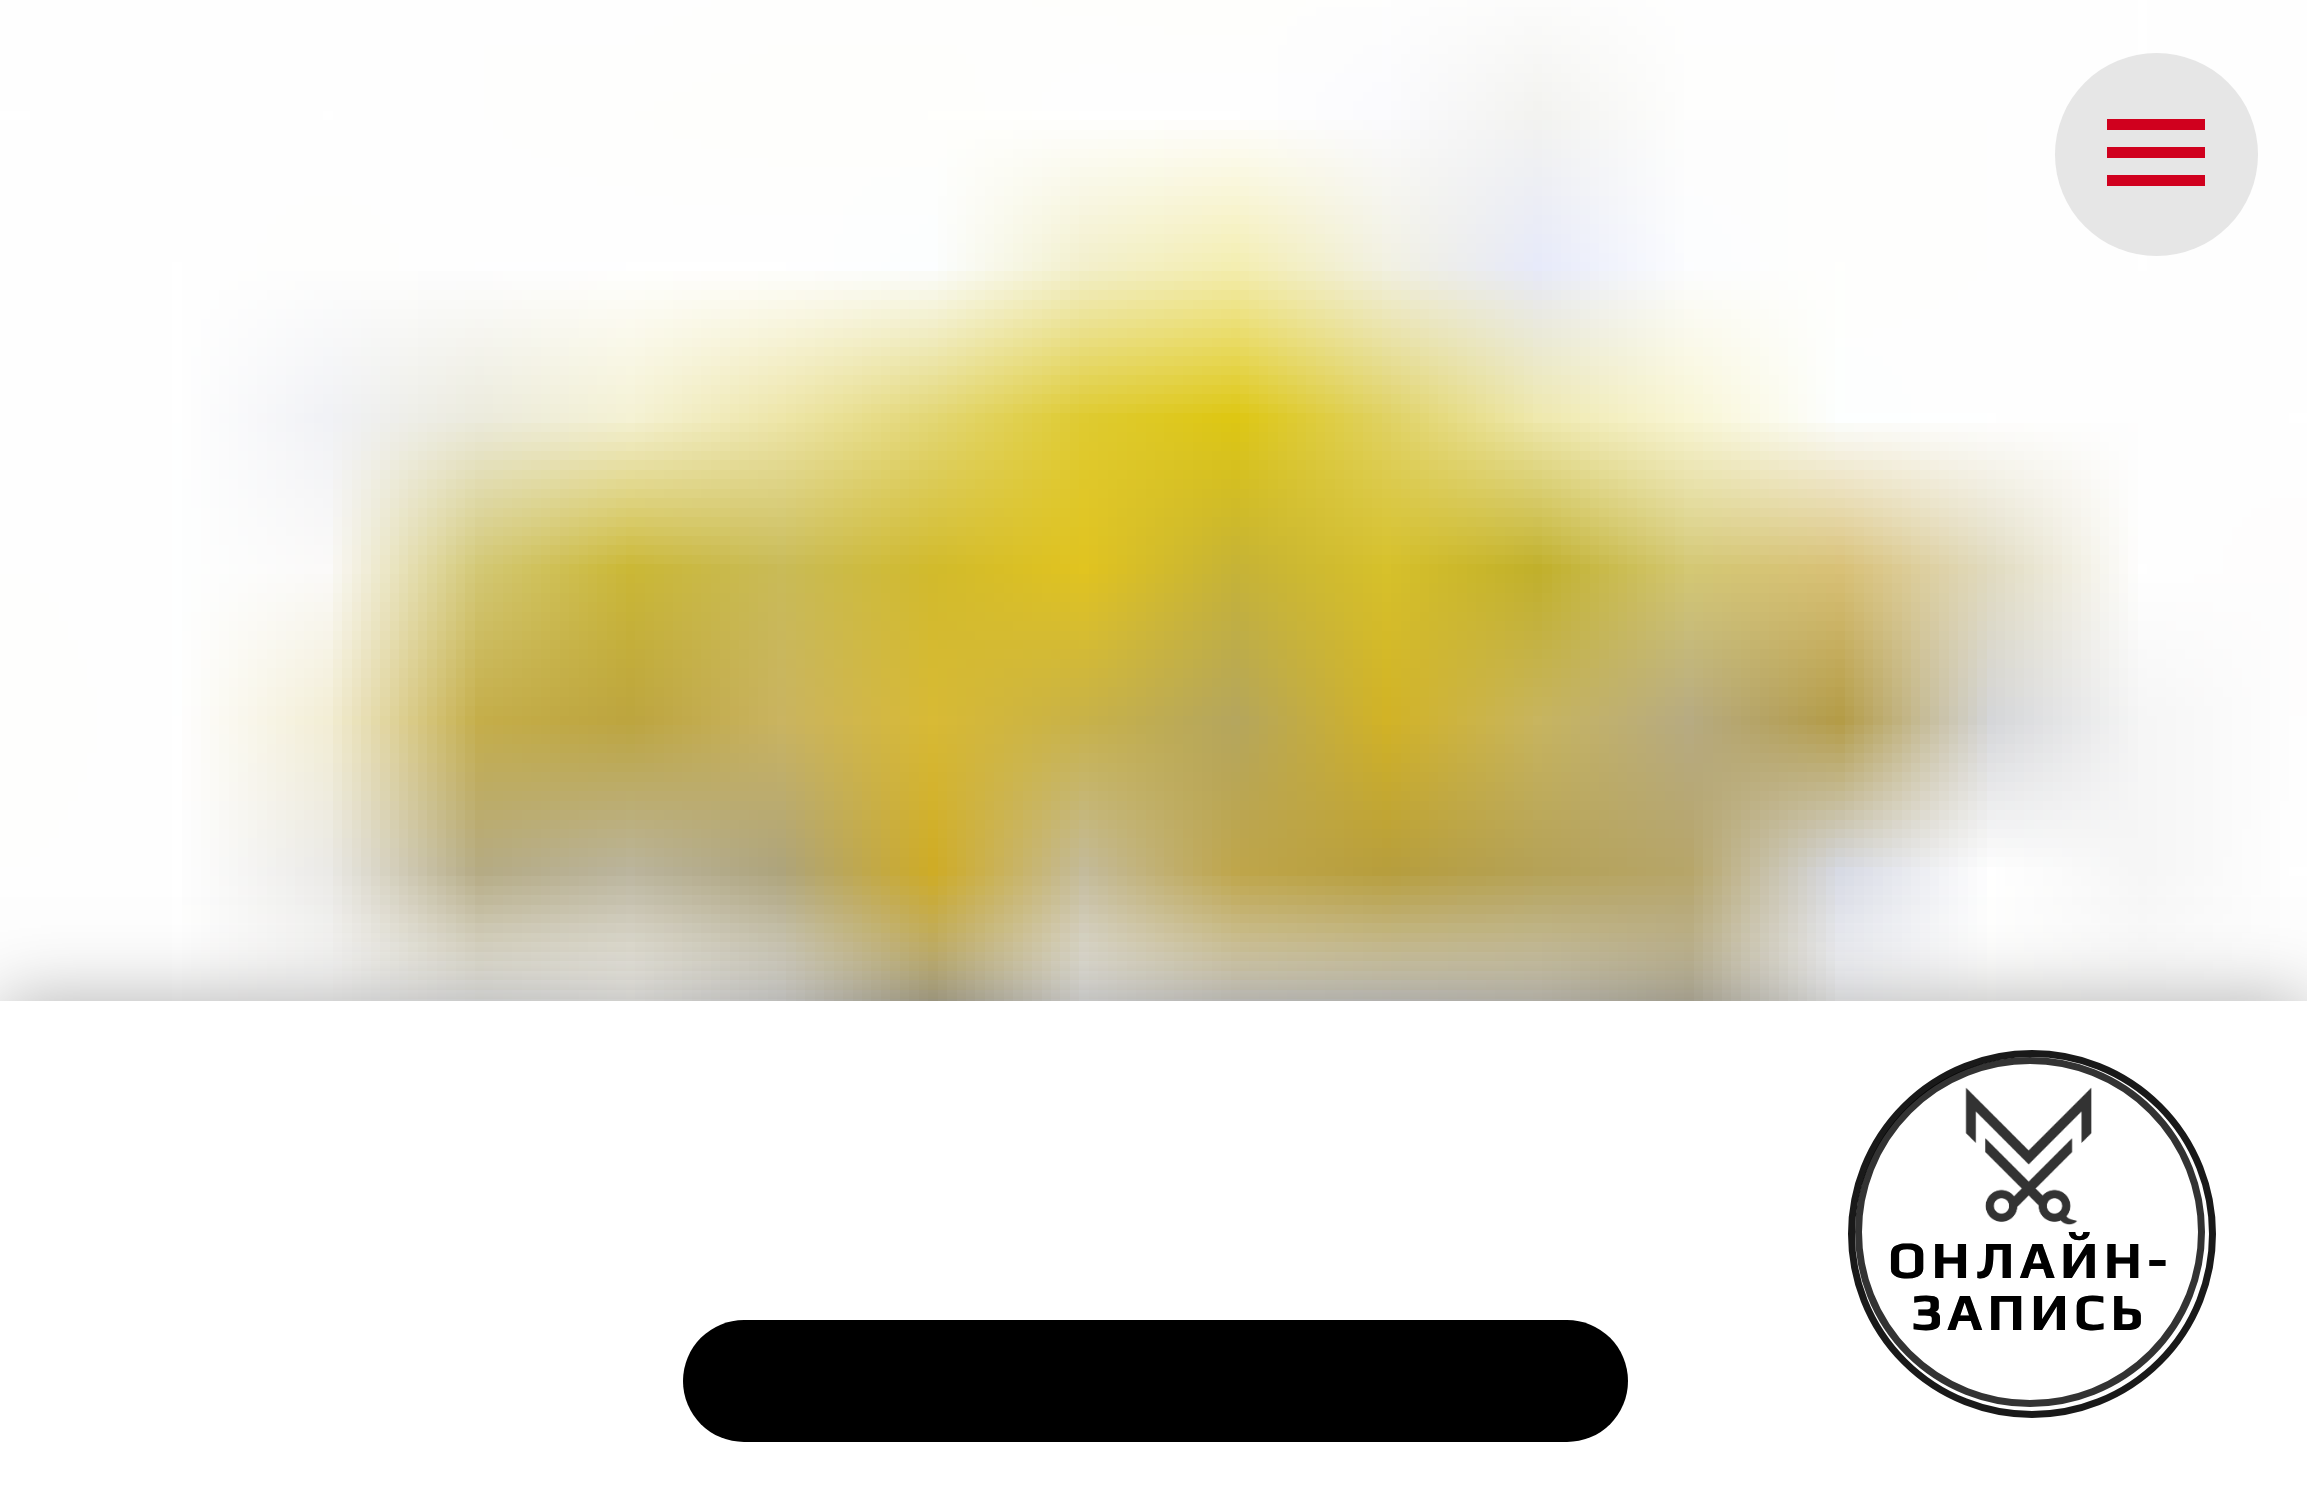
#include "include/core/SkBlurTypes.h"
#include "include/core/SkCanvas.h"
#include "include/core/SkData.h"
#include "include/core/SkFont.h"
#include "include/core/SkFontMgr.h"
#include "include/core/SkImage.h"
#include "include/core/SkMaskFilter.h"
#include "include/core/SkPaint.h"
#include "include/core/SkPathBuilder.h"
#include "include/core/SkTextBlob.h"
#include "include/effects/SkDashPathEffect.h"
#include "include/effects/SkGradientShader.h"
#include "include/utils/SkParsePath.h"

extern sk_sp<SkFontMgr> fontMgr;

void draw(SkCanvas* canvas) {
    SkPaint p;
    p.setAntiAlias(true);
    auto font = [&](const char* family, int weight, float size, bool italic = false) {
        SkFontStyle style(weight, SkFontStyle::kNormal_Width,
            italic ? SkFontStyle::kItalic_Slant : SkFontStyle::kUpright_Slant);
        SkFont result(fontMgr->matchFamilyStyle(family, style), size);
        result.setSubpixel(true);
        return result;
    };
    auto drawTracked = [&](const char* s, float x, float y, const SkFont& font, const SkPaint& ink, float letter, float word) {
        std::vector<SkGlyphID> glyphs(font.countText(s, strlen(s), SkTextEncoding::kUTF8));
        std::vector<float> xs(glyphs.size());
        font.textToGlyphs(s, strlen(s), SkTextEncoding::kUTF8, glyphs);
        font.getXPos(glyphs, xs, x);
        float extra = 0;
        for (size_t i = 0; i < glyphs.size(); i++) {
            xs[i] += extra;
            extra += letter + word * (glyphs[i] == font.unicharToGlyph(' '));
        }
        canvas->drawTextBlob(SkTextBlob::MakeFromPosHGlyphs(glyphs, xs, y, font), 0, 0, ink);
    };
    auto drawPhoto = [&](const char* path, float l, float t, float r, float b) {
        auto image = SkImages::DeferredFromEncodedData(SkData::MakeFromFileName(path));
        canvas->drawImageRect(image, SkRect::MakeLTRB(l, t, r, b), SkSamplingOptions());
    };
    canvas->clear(0xFFFFFFFF);
    drawPhoto("media/1.png", 0, 0, 2307, 1001);
    p.setColor(0xFFE6E6E6);
    canvas->drawCircle(2156.5f, 154.5f, 101.5f, p);
    {
        const struct { float l, t, r, b; SkColor color; } items[] = {
            {2107, 119, 2205, 130, 0xFFD0001E},
            {2107, 147, 2205, 158, 0xFFD0001E},
            {2107, 175, 2205, 186, 0xFFD0001E},
        };
        for (auto [l, t, r, b, color] : items) {
            p.setColor(color);
            canvas->drawRect(SkRect::MakeLTRB(l, t, r, b), p);
        }
    }
    p.setColor(0x4D000000);
    p.setMaskFilter(SkMaskFilter::MakeBlur(kNormal_SkBlurStyle, 35));
    canvas->drawRect(SkRect::MakeLTRB(0, 1001, 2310, 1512), p);
    p.setMaskFilter(nullptr);
    p.setColor(0xFFFFFFFF);
    canvas->drawRect(SkRect::MakeLTRB(0, 1001, 2307, 1511), p);
    p.setColor(0xFF000000);
    canvas->drawRoundRect(SkRect::MakeLTRB(683, 1320, 1628, 1442), 61, 61, p);
    drawPhoto("media/2.png", 1965, 1087, 2092, 1225);
    p.setStyle(SkPaint::kStroke_Style);
    p.setStrokeWidth(7);
    p.setColor(0xFF333333);
    canvas->drawCircle(2030, 1232, 171.5f, p);
    p.setColor(0xE6000000);
    canvas->drawCircle(2032, 1234, 180.5f, p);
    auto font1 = font("Play", 700, 52.5f);
    p.setStyle(SkPaint::kFill_Style);
    p.setColor(0xFF000000);
    drawTracked("ОНЛАЙН-", 1888, 1278, font1, p, 5.25f, 0);
    drawTracked("ЗАПИСЬ", 1912, 1330, font1, p, 5.25f, 0);
}
